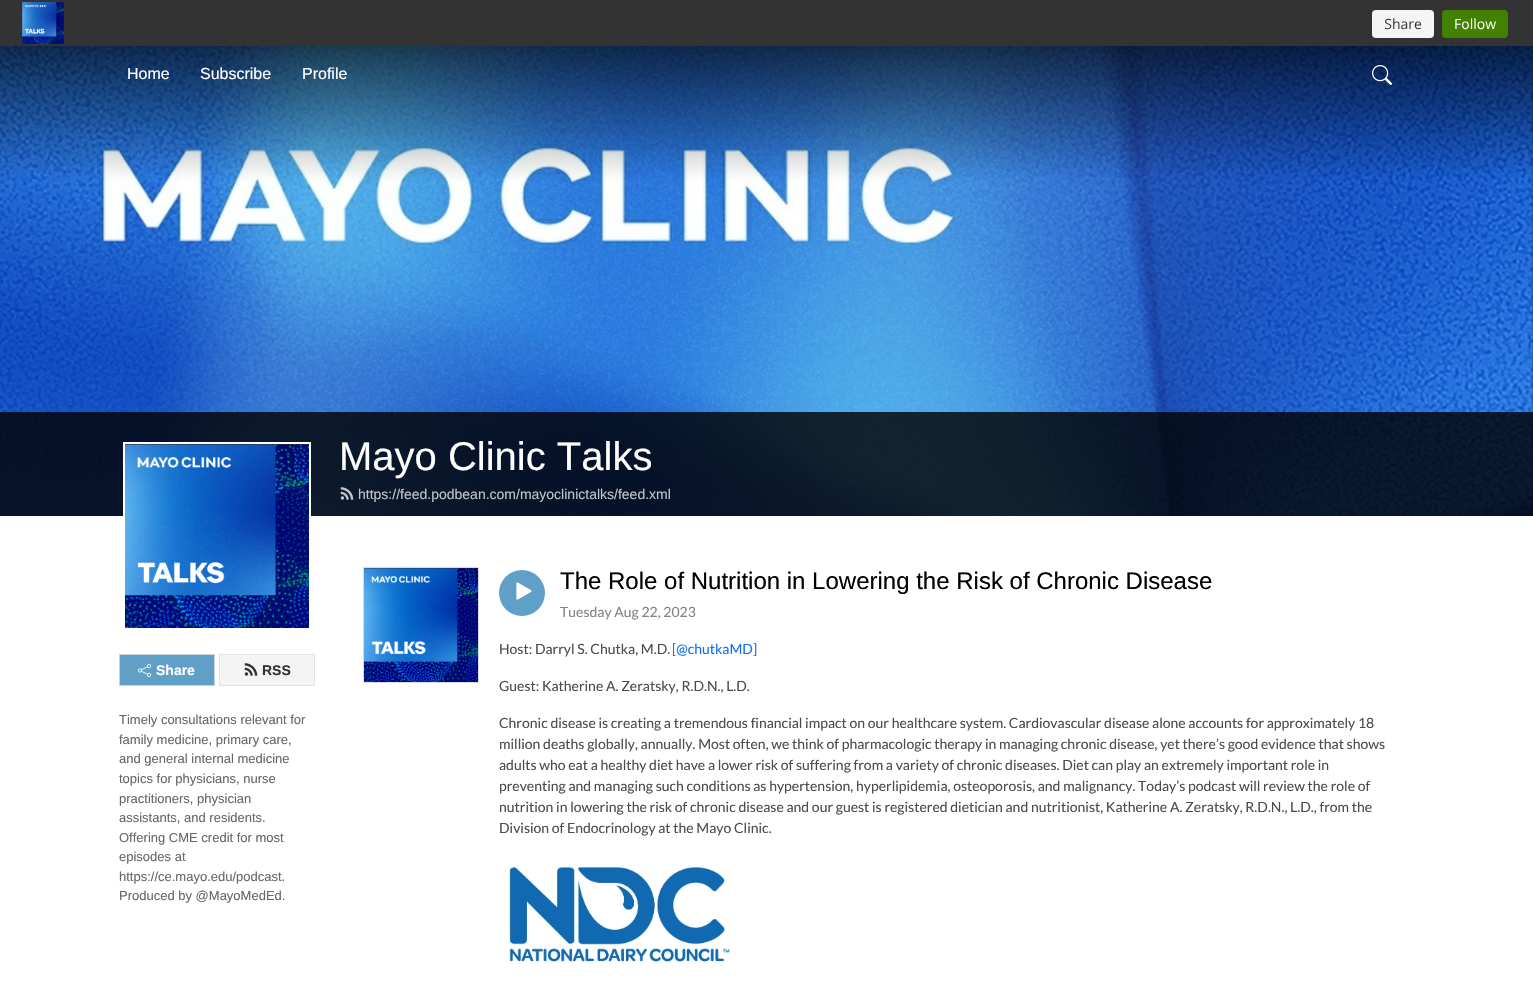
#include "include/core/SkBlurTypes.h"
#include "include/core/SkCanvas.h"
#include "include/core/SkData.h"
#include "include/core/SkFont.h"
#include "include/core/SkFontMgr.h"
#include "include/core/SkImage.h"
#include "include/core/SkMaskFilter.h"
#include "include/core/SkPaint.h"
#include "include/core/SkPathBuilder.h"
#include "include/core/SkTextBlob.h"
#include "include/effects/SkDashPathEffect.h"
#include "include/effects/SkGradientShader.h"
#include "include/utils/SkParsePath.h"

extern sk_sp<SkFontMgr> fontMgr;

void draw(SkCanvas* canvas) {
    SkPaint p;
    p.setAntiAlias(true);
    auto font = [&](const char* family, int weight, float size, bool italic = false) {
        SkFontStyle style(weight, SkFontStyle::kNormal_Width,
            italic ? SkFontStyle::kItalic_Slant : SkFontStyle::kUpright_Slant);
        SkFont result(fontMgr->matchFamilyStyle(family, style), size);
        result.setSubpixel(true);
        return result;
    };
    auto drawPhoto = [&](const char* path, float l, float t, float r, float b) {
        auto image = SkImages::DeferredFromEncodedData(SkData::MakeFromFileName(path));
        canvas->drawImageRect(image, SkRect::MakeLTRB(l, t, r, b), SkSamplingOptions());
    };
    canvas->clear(0xFFFFFFFF);
    p.setColor(0xFF333333);
    canvas->drawRect(SkRect::MakeLTRB(0, 0, 1533, 46), p);
    drawPhoto("media/1.png", 22, 2, 1508, 44);
    drawPhoto("media/3.png", 0, 46, 1533, 516);
    auto font1 = font("Liberation Sans", 400, 16);
    p.setColor(0xFFFFFFFF);
    {
        const struct { const char* s; float x, y; } items[] = {
            {"Home", 127, 79},
            {"Subscribe", 200, 79},
            {"Profile", 302, 79},
        };
        for (auto [s, x, y] : items) {
            canvas->drawString(s, x, y, font1, p);
        }
    }
    drawPhoto("media/2.png", 1372, 65, 1392, 85);
    p.setColor(0xCC000000);
    canvas->drawRect(SkRect::MakeLTRB(0, 412, 1533, 516), p);
    auto font2 = font("Liberation Sans", 400, 40);
    p.setColor(0xFFFFFFFF);
    canvas->drawString("Mayo Clinic Talks", 339, 470, font2, p);
    drawPhoto("media/4.png", 340, 487, 354, 500);
    auto font3 = font("Liberation Sans", 400, 14);
    p.setColor(0xFFC1C4C9);
    canvas->drawString("https://feed.podbean.com/mayoclinictalks/feed.xml", 358, 499, font3, p);
    p.setStyle(SkPaint::kStroke_Style);
    p.setStrokeWidth(2);
    p.setColor(0xFFFFFFFF);
    canvas->drawRect(SkRect::MakeLTRB(124, 443, 310, 629), p);
    drawPhoto("media/5.png", 125, 444, 309, 628);
    p.setStyle(SkPaint::kFill_Style);
    p.setColor(0xFF60A0C8);
    canvas->drawRect(SkRect::MakeLTRB(119.5f, 654.5f, 214.5f, 685.5f), p);
    p.setStyle(SkPaint::kStroke_Style);
    p.setStrokeWidth(1);
    p.setColor(0xFFC8D5DD);
    canvas->drawRect(SkRect::MakeLTRB(119.5f, 654.5f, 214.5f, 685.5f), p);
    drawPhoto("media/6.png", 138, 664, 151, 677);
    auto font4 = font("Liberation Sans", 700, 14);
    p.setStyle(SkPaint::kFill_Style);
    p.setColor(0xFFFFFFFF);
    canvas->drawString("Share", 156, 675, font4, p);
    p.setColor(0xFFF4F4F4);
    canvas->drawRect(SkRect::MakeLTRB(219.5f, 654.5f, 314.5f, 685.5f), p);
    p.setStyle(SkPaint::kStroke_Style);
    p.setColor(0xFFE2E2E2);
    canvas->drawRect(SkRect::MakeLTRB(219.5f, 654.5f, 314.5f, 685.5f), p);
    drawPhoto("media/7.png", 244, 663, 258, 676);
    p.setStyle(SkPaint::kFill_Style);
    p.setColor(0xFF333333);
    canvas->drawString("RSS", 262, 675, font4, p);
    auto font5 = font("Liberation Sans", 400, 13);
    p.setColor(0xFF646669);
    {
        const struct { const char* s; float x, y; } items[] = {
            {"Timely consultations relevant for", 119, 724},
            {"family medicine, primary care,", 119, 744},
            {"and general internal medicine", 119, 763},
            {"topics for physicians, nurse", 119, 783},
            {"practitioners, physician", 119, 803},
            {"assistants, and residents.", 119, 822},
            {"Offering CME credit for most", 119, 842},
            {"episodes at", 119, 861},
            {"https://ce.mayo.edu/podcast.", 119, 881},
            {"Produced by @MayoMedEd.", 119, 900},
        };
        for (auto [s, x, y] : items) {
            canvas->drawString(s, x, y, font5, p);
        }
    }
    p.setStyle(SkPaint::kStroke_Style);
    p.setColor(0xFFDADADA);
    canvas->drawRect(SkRect::MakeLTRB(363.5f, 567.5f, 478.5f, 682.5f), p);
    drawPhoto("media/8.png", 364, 568, 478, 682);
    p.setStyle(SkPaint::kFill_Style);
    p.setColor(0xFF60A0C8);
    canvas->drawCircle(522, 593, 23, p);
    drawPhoto("media/9.png", 516, 582, 532, 600);
    auto font6 = font("Liberation Sans", 400, 24);
    p.setColor(0xFF000000);
    canvas->drawString("The Role of Nutrition in Lowering the Risk of Chronic Disease", 560, 589, font6, p);
    auto font7 = font("Lato", 400, 14);
    p.setColor(0xFF838383);
    canvas->drawString("Tuesday Aug 22, 2023", 560, 617, font7, p);
    p.setColor(0xFF4C4C4C);
    canvas->drawString("Host: Darryl S. Chutka, M.D.", 499, 654, font7, p);
    p.setColor(0xFF0D6EFD);
    canvas->drawString("[@chutkaMD]", 672, 654, font7, p);
    p.setColor(0xFF4C4C4C);
    {
        const struct { const char* s; float x, y; } items[] = {
            {"Guest: Katherine A. Zeratsky, R.D.N., L.D.", 499, 691},
            {"Chronic disease is creating a tremendous financial impact on our healthcare system. Cardiovascular disease alone accounts for approximately 18", 499, 728},
            {"million deaths globally, annually. Most often, we think of pharmacologic therapy in managing chronic disease, yet there’s good evidence that shows", 499, 749},
            {"adults who eat a healthy diet have a lower risk of suffering from a variety of chronic diseases. Diet can play an extremely important role in", 499, 770},
            {"preventing and managing such conditions as hypertension, hyperlipidemia, osteoporosis, and malignancy. Today’s podcast will review the role of", 499, 791},
            {"nutrition in lowering the risk of chronic disease and our guest is registered dietician and nutritionist, Katherine A. Zeratsky, R.D.N., L.D., from the", 499, 812},
            {"Division of Endocrinology at the Mayo Clinic.", 499, 833},
        };
        for (auto [s, x, y] : items) {
            canvas->drawString(s, x, y, font7, p);
        }
    }
    drawPhoto("media/10.png", 509, 866, 730, 962);
}
